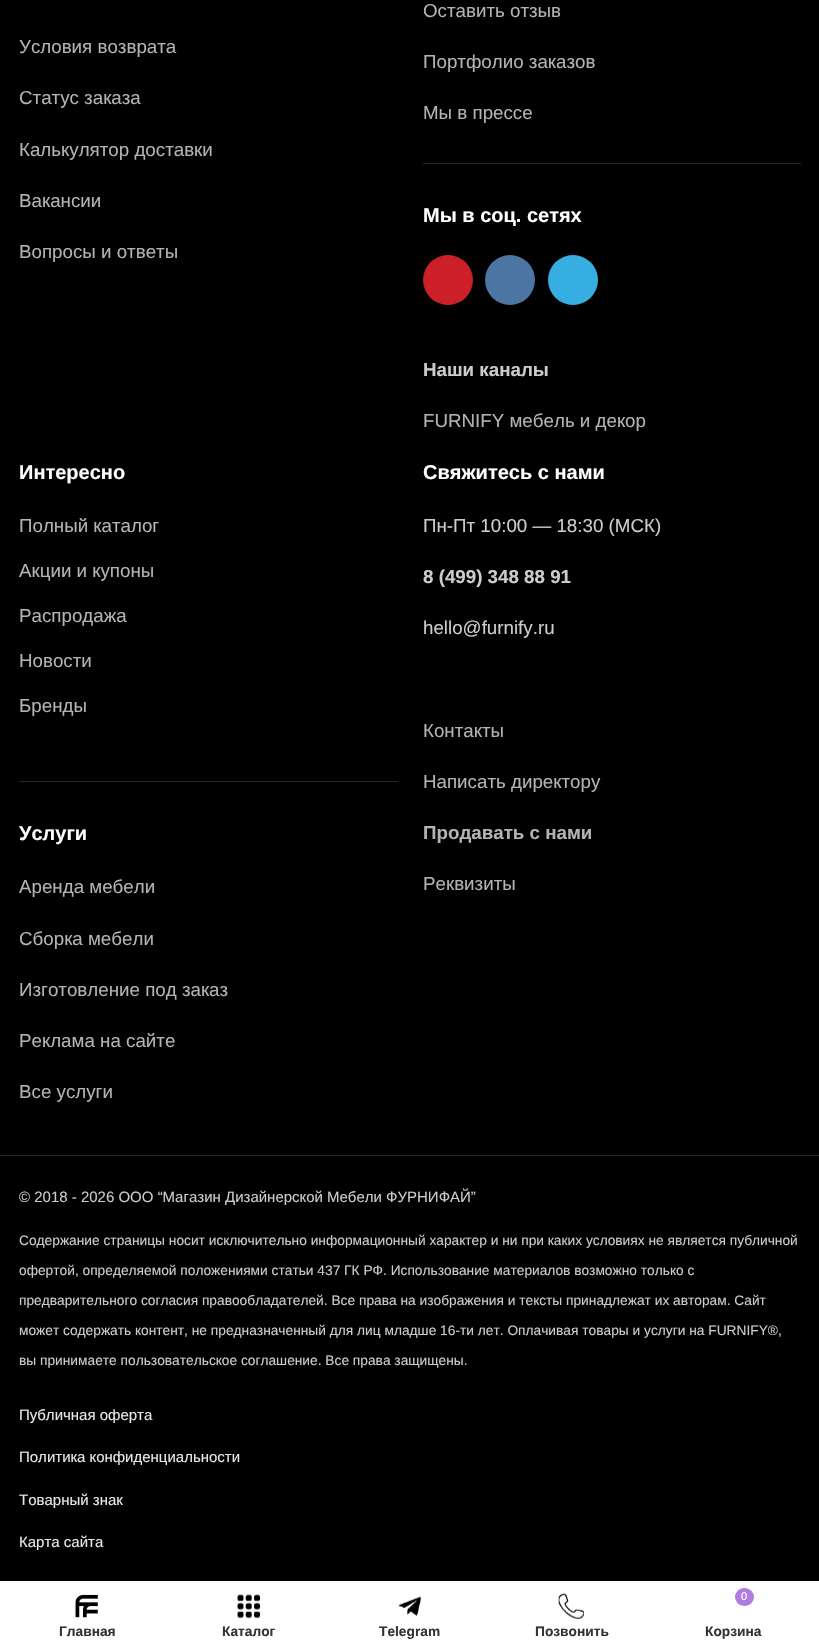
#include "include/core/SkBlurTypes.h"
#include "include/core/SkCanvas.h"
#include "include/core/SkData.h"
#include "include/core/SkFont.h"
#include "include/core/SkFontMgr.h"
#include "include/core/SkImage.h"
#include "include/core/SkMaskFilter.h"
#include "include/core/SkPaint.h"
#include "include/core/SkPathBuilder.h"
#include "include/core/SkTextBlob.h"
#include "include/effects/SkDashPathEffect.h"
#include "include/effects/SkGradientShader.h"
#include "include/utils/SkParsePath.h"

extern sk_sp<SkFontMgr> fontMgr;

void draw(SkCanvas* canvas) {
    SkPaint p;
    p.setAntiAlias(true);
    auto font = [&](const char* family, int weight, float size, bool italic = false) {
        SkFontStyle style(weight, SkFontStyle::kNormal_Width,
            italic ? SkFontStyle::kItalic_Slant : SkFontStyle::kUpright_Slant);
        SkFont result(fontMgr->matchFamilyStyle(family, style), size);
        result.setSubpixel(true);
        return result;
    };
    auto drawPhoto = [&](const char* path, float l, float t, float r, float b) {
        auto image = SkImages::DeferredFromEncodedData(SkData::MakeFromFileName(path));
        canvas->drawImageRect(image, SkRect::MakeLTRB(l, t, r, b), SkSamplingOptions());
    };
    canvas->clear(0xFF000000);
    auto font1 = font("Liberation Sans", 400, 18.75f);
    p.setColor(0xFFB3B3B3);
    {
        const struct { const char* s; float x, y; } items[] = {
            {"Условия возврата", 19, 53},
            {"Статус заказа", 19, 104},
            {"Калькулятор доставки", 19, 156},
            {"Вакансии", 19, 207},
            {"Вопросы и ответы", 19, 258},
        };
        for (auto [s, x, y] : items) {
            canvas->drawString(s, x, y, font1, p);
        }
    }
    p.setColor(0xFF262626);
    canvas->drawRect(SkRect::MakeLTRB(423, 163, 801, 164), p);
    p.setColor(0xFFB3B3B3);
    {
        const struct { const char* s; float x, y; } items[] = {
            {"Оставить отзыв", 423, 17},
            {"Портфолио заказов", 423, 68},
            {"Мы в прессе", 423, 119},
        };
        for (auto [s, x, y] : items) {
            canvas->drawString(s, x, y, font1, p);
        }
    }
    auto font2 = font("Liberation Sans", 700, 20);
    p.setColor(0xFFFFFFFF);
    canvas->drawString("Мы в соц. сетях", 423, 222, font2, p);
    p.setColor(0xFFCB2027);
    canvas->drawCircle(448, 280, 25, p);
    p.setColor(0xFF4C75A3);
    canvas->drawCircle(510, 280, 25, p);
    p.setColor(0xFF37AEE2);
    canvas->drawCircle(573, 280, 25, p);
    auto font3 = font("Liberation Sans", 700, 18.75f);
    p.setColor(0xFFCCCCCC);
    canvas->drawString("Наши каналы", 423, 376, font3, p);
    p.setColor(0xFFB3B3B3);
    canvas->drawString("FURNIFY мебель и декор", 423, 427, font1, p);
    p.setColor(0xFF262626);
    canvas->drawRect(SkRect::MakeLTRB(19, 781, 398, 782), p);
    p.setColor(0xFFFFFFFF);
    canvas->drawString("Интересно", 19, 479, font2, p);
    p.setColor(0xFFB3B3B3);
    {
        const struct { const char* s; float x, y; } items[] = {
            {"Полный каталог", 19, 532},
            {"Акции и купоны", 19, 577},
            {"Распродажа", 19, 622},
            {"Новости", 19, 667},
            {"Бренды", 19, 712},
        };
        for (auto [s, x, y] : items) {
            canvas->drawString(s, x, y, font1, p);
        }
    }
    p.setColor(0xFFFFFFFF);
    canvas->drawString("Услуги", 19, 840, font2, p);
    p.setColor(0xFFB3B3B3);
    {
        const struct { const char* s; float x, y; } items[] = {
            {"Аренда мебели", 19, 893},
            {"Сборка мебели", 19, 945},
            {"Изготовление под заказ", 19, 996},
            {"Реклама на сайте", 19, 1047},
            {"Все услуги", 19, 1098},
        };
        for (auto [s, x, y] : items) {
            canvas->drawString(s, x, y, font1, p);
        }
    }
    p.setColor(0xFFFFFFFF);
    canvas->drawString("Свяжитесь с нами", 423, 479, font2, p);
    p.setColor(0xFFCCCCCC);
    canvas->drawString("Пн-Пт 10:00 — 18:30 (МСК)", 423, 532, font1, p);
    canvas->drawString("8 (499) 348 88 91", 423, 583, font3, p);
    canvas->drawString("hello@furnify.ru", 423, 634, font1, p);
    p.setColor(0xFFB3B3B3);
    canvas->drawString("Контакты", 423, 737, font1, p);
    canvas->drawString("Написать директору", 423, 788, font1, p);
    canvas->drawString("Продавать с нами", 423, 839, font3, p);
    canvas->drawString("Реквизиты", 423, 890, font1, p);
    p.setColor(0xFF262626);
    canvas->drawRect(SkRect::MakeLTRB(0, 1155, 819, 1156), p);
    auto font4 = font("Liberation Sans", 400, 15);
    p.setColor(0xFFCCCCCC);
    canvas->drawString("© 2018 - 2026 ООО “Магазин Дизайнерской Мебели ФУРНИФАЙ”", 19, 1202, font4, p);
    auto font5 = font("Liberation Sans", 400, 13.75f);
    {
        const struct { const char* s; float x, y; } items[] = {
            {"Содержание страницы носит исключительно информационный характер и ни при каких условиях не является публичной", 19, 1245},
            {"офертой, определяемой положениями статьи 437 ГК РФ. Использование материалов возможно только с", 19, 1275},
            {"предварительного согласия правообладателей. Все права на изображения и тексты принадлежат их авторам. Сайт", 19, 1305},
            {"может содержать контент, не предназначенный для лиц младше 16-ти лет. Оплачивая товары и услуги на FURNIFY®,", 19, 1335},
            {"вы принимаете пользовательское соглашение. Все права защищены.", 19, 1365},
        };
        for (auto [s, x, y] : items) {
            canvas->drawString(s, x, y, font5, p);
        }
    }
    p.setColor(0xFFE6E6E6);
    {
        const struct { const char* s; float x, y; } items[] = {
            {"Публичная оферта", 19, 1420},
            {"Политика конфиденциальности", 19, 1462},
            {"Товарный знак", 19, 1505},
            {"Карта сайта", 19, 1547},
        };
        for (auto [s, x, y] : items) {
            canvas->drawString(s, x, y, font4, p);
        }
    }
    p.setColor(0xFFFFFFFF);
    canvas->drawRect(SkRect::MakeLTRB(0, 1581, 819, 1649), p);
    drawPhoto("media/1.png", 75, 1594, 98, 1618);
    auto font6 = font("Liberation Sans", 700, 13.75f);
    p.setColor(0xFF333333);
    canvas->drawString("Главная", 59, 1636, font6, p);
    drawPhoto("media/2.png", 237, 1594, 261, 1619);
    canvas->drawString("Каталог", 222, 1636, font6, p);
    drawPhoto("media/3.png", 399, 1596, 422, 1616);
    canvas->drawString("Telegram", 379, 1636, font6, p);
    drawPhoto("media/4.png", 558, 1593, 584, 1619);
    canvas->drawString("Позвонить", 535, 1636, font6, p);
    p.setColor(0xFFAF7CE2);
    canvas->drawRoundRect(SkRect::MakeLTRB(735, 1588, 754, 1606), 9, 9, p);
    auto font7 = font("Liberation Sans", 400, 11);
    p.setColor(0xFFFFFFFF);
    canvas->drawString("0", 741, 1600, font7, p);
    p.setColor(0xFF333333);
    canvas->drawString("Корзина", 705, 1636, font6, p);
}
